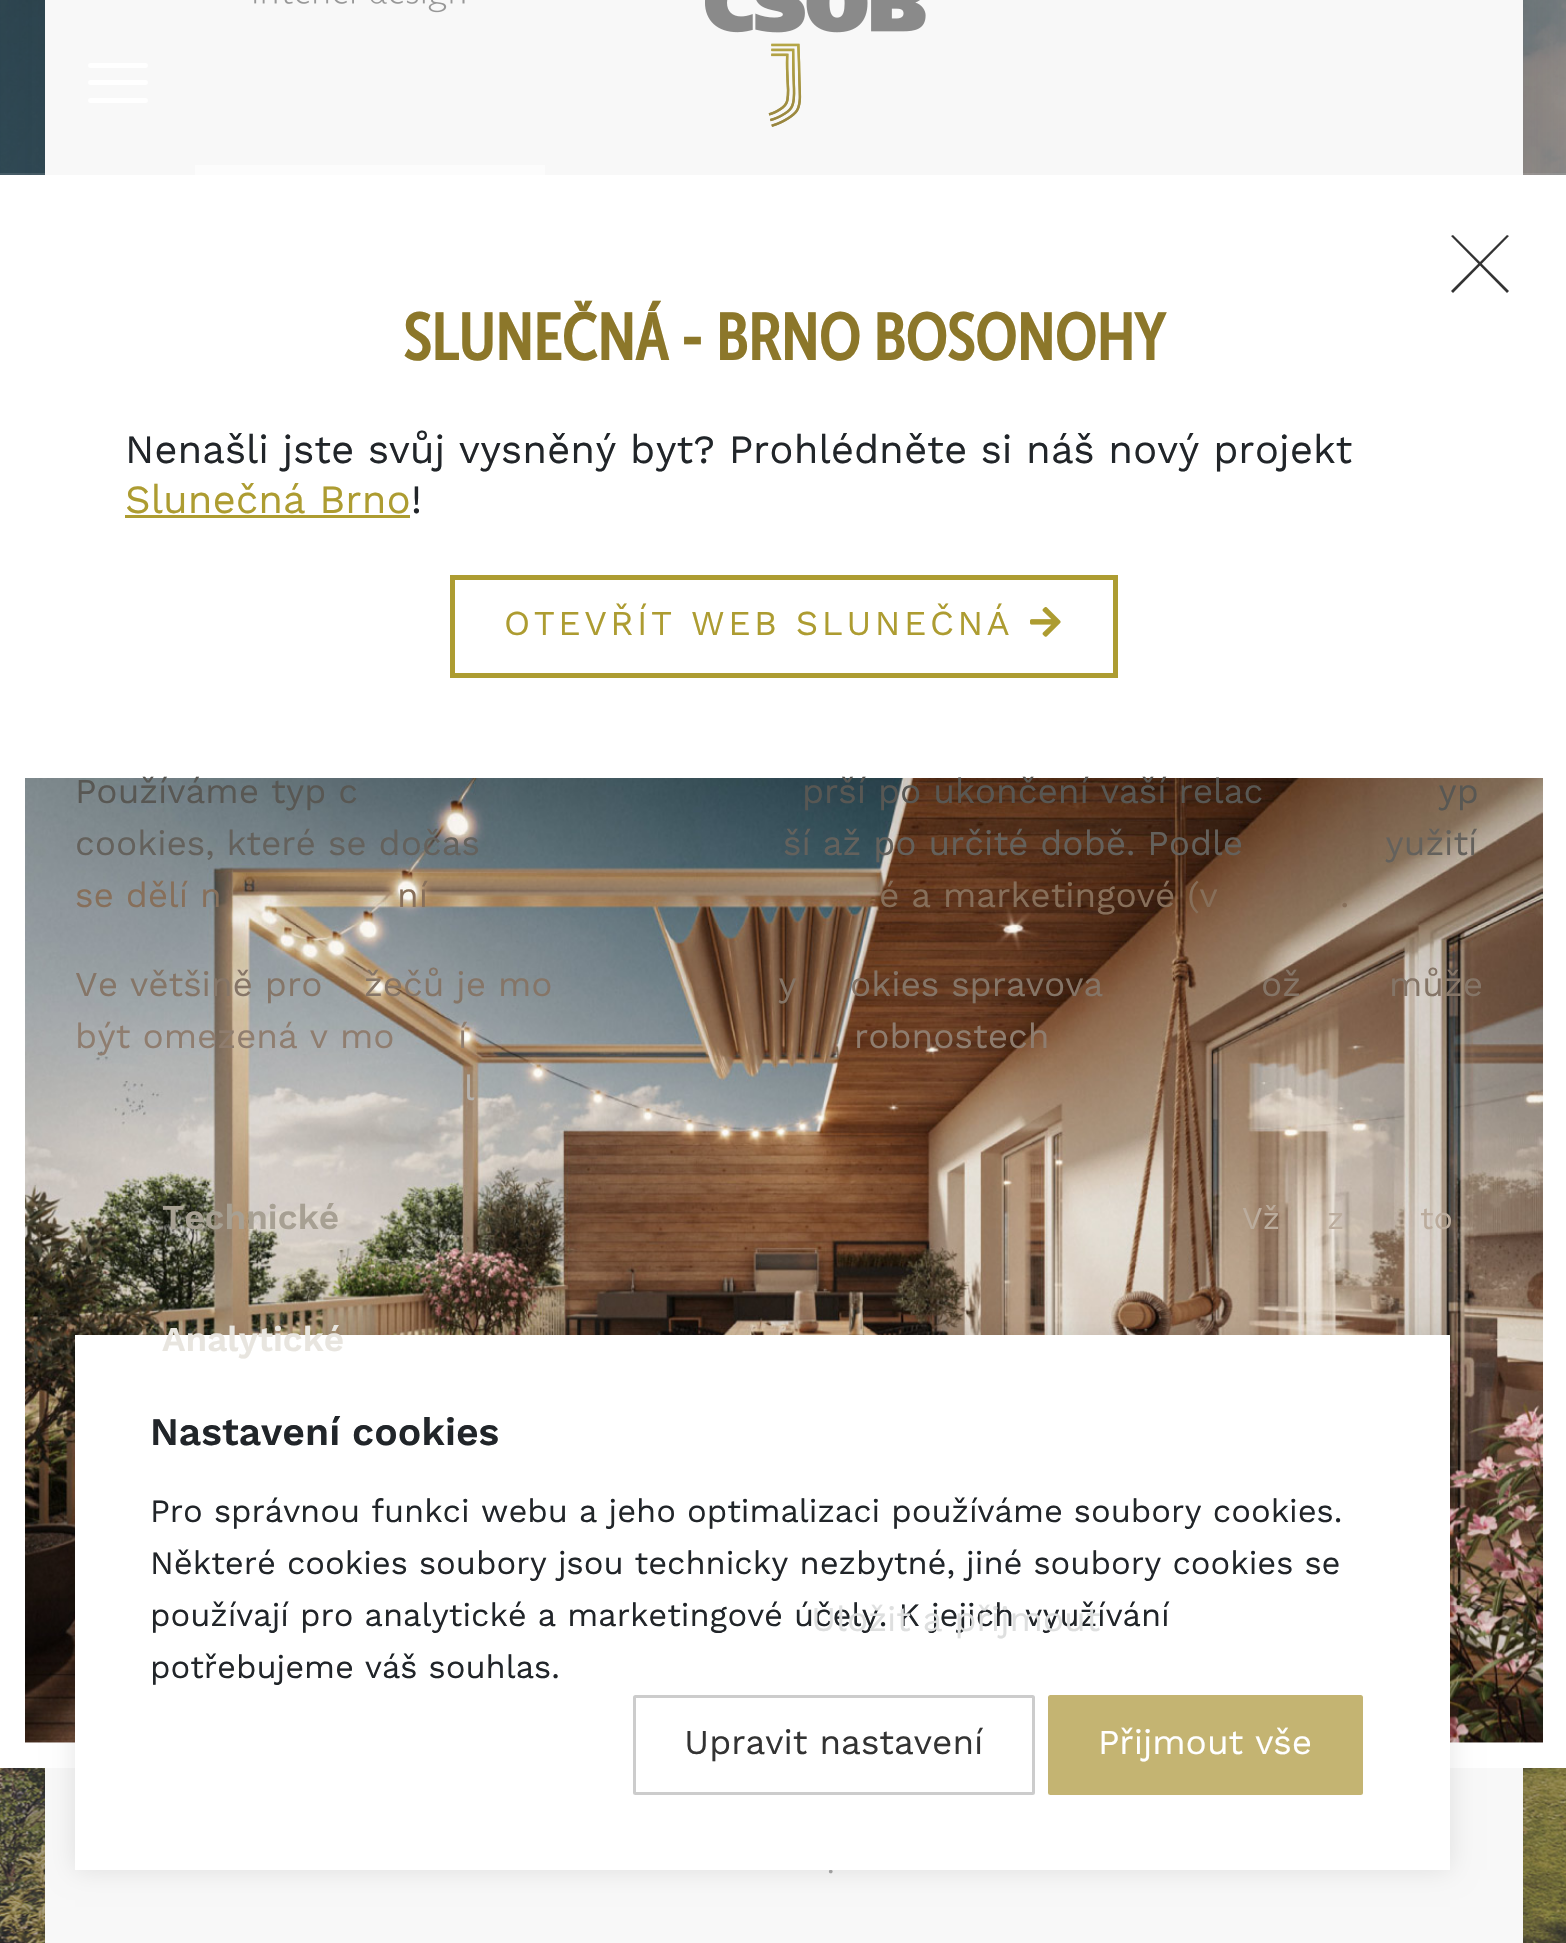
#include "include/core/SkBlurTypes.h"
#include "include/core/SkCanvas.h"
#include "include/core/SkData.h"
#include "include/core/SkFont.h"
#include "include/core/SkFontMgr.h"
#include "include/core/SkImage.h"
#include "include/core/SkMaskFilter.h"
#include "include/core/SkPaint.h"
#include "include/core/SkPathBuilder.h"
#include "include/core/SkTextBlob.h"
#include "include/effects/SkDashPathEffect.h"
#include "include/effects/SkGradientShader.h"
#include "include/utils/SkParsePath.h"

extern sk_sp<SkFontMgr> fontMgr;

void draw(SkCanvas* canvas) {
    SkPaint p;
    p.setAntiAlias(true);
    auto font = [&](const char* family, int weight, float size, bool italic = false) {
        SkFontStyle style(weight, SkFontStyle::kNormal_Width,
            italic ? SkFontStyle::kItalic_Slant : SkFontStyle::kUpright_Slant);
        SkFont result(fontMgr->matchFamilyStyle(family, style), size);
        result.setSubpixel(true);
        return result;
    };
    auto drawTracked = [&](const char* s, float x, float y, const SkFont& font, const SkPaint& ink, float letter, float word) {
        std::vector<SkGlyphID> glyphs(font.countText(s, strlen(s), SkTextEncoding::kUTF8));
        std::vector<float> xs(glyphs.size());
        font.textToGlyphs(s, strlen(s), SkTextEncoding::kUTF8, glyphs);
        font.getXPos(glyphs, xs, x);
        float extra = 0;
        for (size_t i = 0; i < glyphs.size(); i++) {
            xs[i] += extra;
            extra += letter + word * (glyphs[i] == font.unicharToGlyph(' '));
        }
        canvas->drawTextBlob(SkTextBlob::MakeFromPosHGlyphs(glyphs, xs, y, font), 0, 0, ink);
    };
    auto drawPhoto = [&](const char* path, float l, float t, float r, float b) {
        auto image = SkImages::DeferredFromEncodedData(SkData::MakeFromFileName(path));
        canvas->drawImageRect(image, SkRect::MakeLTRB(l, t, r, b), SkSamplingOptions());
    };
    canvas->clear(0xFFFFFFFF);
    drawPhoto("media/1.png", 0, 0, 1566, 1943);
    drawPhoto("media/2.png", 0, 0, 1566, 1943);
    {
        const SkColor colors[] = {0x8F1A1A1A, 0x001A1A1A};
        const float stops[] = {0, 0.85f};
        const SkPoint ends[] = {{-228, 412}, {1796, 1533}};
        p.setShader(SkGradientShader::MakeLinear(ends, colors, stops, 2, SkTileMode::kClamp));
        p.setAlpha(255);
    }
    canvas->drawRect(SkRect::MakeLTRB(0, 0, 1566, 1943), p);
    {
        const SkColor colors[] = {0x401A1A1A, 0x001A1A1A};
        const float stops[] = {0, 0.25f};
        const SkPoint ends[] = {{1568, 973}, {0, 973}};
        p.setShader(SkGradientShader::MakeLinear(ends, colors, stops, 2, SkTileMode::kClamp));
        p.setAlpha(255);
    }
    canvas->drawRect(SkRect::MakeLTRB(1523, 0, 1566, 1943), p);
    p.setShader(nullptr);
    p.setColor(0x331A1A1A);
    p.setMaskFilter(SkMaskFilter::MakeBlur(kNormal_SkBlurStyle, 50));
    canvas->drawRect(SkRect::MakeLTRB(45, -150, 1523, 1943), p);
    p.setMaskFilter(nullptr);
    p.setColor(0xFFF8F8F8);
    canvas->drawRect(SkRect::MakeLTRB(45, 0, 1523, 1943), p);
    drawPhoto("media/8.png", 195, 165, 545, 175);
    p.setColor(0x1AFFFFFF);
    canvas->drawRect(SkRect::MakeLTRB(0, 173, 1566, 175), p);
    p.setColor(0xFFFFFFFF);
    canvas->drawRoundRect(SkRect::MakeLTRB(88, 63, 148, 68), 2.5f, 2.5f, p);
    canvas->drawRoundRect(SkRect::MakeLTRB(88, 80, 148, 85), 2.5f, 2.5f, p);
    canvas->drawRoundRect(SkRect::MakeLTRB(88, 98, 148, 103), 2.5f, 2.5f, p);
    drawPhoto("media/3.png", 768, 43, 802, 127);
    canvas->drawRect(SkRect::MakeLTRB(0, 175, 1566, 1768), p);
    p.setColor(0xFF333333);
    canvas->drawPath(SkPathBuilder().moveTo(1451, 291).lineTo(1507, 235).lineTo(1509, 236).lineTo(1453, 293).close().detach(), p);
    canvas->drawPath(SkPathBuilder().moveTo(1453, 235).lineTo(1509, 291).lineTo(1507, 293).lineTo(1451, 236).close().detach(), p);
    auto font1 = font("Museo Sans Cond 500", 700, 65);
    p.setColor(0xFF8C772A);
    canvas->drawString("SLUNEČNÁ - BRNO BOSONOHY", 403, 360, font1, p);
    auto font2 = font("Work Sans", 400, 40);
    p.setColor(0xFF212529);
    canvas->drawString("Nenašli jste svůj vysněný byt? Prohlédněte si náš nový projekt", 125, 463, font2, p);
    p.setColor(0xFFAD9C31);
    canvas->drawString("Slunečná Brno", 125, 513, font2, p);
    canvas->drawRect(SkRect::MakeLTRB(125, 515, 410, 518), p);
    p.setColor(0xFF212529);
    canvas->drawString("!", 411, 513, font2, p);
    p.setStyle(SkPaint::kStroke_Style);
    p.setStrokeWidth(5);
    p.setColor(0xFFAD9C31);
    canvas->drawRect(SkRect::MakeLTRB(452.5f, 577.5f, 1115.5f, 675.5f), p);
    auto font3 = font("Work Sans", 400, 35);
    p.setStyle(SkPaint::kFill_Style);
    drawTracked("OTEVŘÍT WEB SLUNEČNÁ", 504, 635, font3, p, 3.5f, 0);
    drawPhoto("media/4.png", 1030, 607, 1061, 637);
    drawPhoto("media/5.png", 25, 778, 1543, 1743);
    p.setColor(0xFF585753);
    {
        const struct { const char* s; float x, y; } items[] = {
            {"Používáme typ c", 75, 803},
            {"prší po ukončení vaší relac", 802, 803},
            {"yp", 1438, 803},
        };
        for (auto [s, x, y] : items) {
            canvas->drawString(s, x, y, font3, p);
        }
    }
    p.setColor(0xFF64615C);
    {
        const struct { const char* s; float x, y; } items[] = {
            {"cookies, které se dočas", 75, 855},
            {"ší až po určité době. Podle", 783, 855},
            {"yužití", 1385, 855},
        };
        for (auto [s, x, y] : items) {
            canvas->drawString(s, x, y, font3, p);
        }
    }
    p.setColor(0xFF876F5A);
    {
        const struct { const char* s; float x, y; } items[] = {
            {"se dělí n", 75, 907},
            {"ní", 397, 907},
            {"é a marketingové (v", 879, 907},
            {".", 1340, 907},
        };
        for (auto [s, x, y] : items) {
            canvas->drawString(s, x, y, font3, p);
        }
    }
    p.setColor(0xFF857567);
    {
        const struct { const char* s; float x, y; } items[] = {
            {"Ve většině pro", 75, 996},
            {"žečů je mo", 364, 996},
            {"y", 778, 996},
            {"okies spravova", 850, 996},
            {"ož", 1261, 996},
            {"může", 1389, 996},
        };
        for (auto [s, x, y] : items) {
            canvas->drawString(s, x, y, font3, p);
        }
    }
    p.setColor(0xFF8F7D6F);
    {
        const struct { const char* s; float x, y; } items[] = {
            {"být omezená v mo", 75, 1048},
            {"í", 458, 1048},
            {"robnostech", 854, 1048},
        };
        for (auto [s, x, y] : items) {
            canvas->drawString(s, x, y, font3, p);
        }
    }
    p.setColor(0xFFB4B2AF);
    canvas->drawString("l", 464, 1100, font3, p);
    auto font4 = font("Work Sans", 600, 35);
    p.setColor(0xFFA7A093);
    canvas->drawString("Technické", 162, 1229, font4, p);
    auto font5 = font("Work Sans", 400, 32);
    p.setColor(0xFFBBAC9D);
    {
        const struct { const char* s; float x, y; } items[] = {
            {"Vž", 1242, 1229},
            {"z", 1327, 1229},
            {"to", 1420, 1229},
        };
        for (auto [s, x, y] : items) {
            canvas->drawString(s, x, y, font5, p);
        }
    }
    p.setColor(0x1A000000);
    p.setMaskFilter(SkMaskFilter::MakeBlur(kNormal_SkBlurStyle, 12.5f));
    canvas->drawRect(SkRect::MakeLTRB(75, 1335, 1450, 1870), p);
    p.setMaskFilter(nullptr);
    auto font6 = font("Work Sans", 400, 28);
    p.setColor(0xFF9F9F9F);
    canvas->drawString(".", 827, 1873, font6, p);
    p.setColor(0xFFFFFFFF);
    canvas->drawRect(SkRect::MakeLTRB(75, 1335, 1450, 1870), p);
    p.setColor(0xFFE8E5DF);
    canvas->drawString("Analytické", 162, 1351, font4, p);
    auto font7 = font("Work Sans", 400, 32.5f);
    p.setColor(0xFF212529);
    canvas->drawString("používají pro analytické a marketingové účely. K jejich využívání", 150, 1626, font7, p);
    p.setColor(0xFFDEDFDF);
    canvas->drawString("Uložit a přijmout", 811, 1631, font3, p);
    auto font8 = font("Work Sans", 600, 39);
    p.setColor(0xFF212529);
    canvas->drawString("Nastavení cookies", 150, 1445, font8, p);
    {
        const struct { const char* s; float x, y; } items[] = {
            {"Pro správnou funkci webu a jeho optimalizaci používáme soubory cookies.", 150, 1522},
            {"Některé cookies soubory jsou technicky nezbytné, jiné soubory cookies se", 150, 1574},
            {"potřebujeme váš souhlas.", 150, 1678},
        };
        for (auto [s, x, y] : items) {
            canvas->drawString(s, x, y, font7, p);
        }
    }
    p.setStyle(SkPaint::kStroke_Style);
    p.setStrokeWidth(3);
    p.setColor(0xFFCCCCCC);
    canvas->drawRoundRect(SkRect::MakeLTRB(634.5f, 1696.5f, 1033.5f, 1793.5f), 1, 1, p);
    p.setStyle(SkPaint::kFill_Style);
    p.setColor(0xFF333333);
    canvas->drawString("Upravit nastavení", 684, 1754, font3, p);
    p.setColor(0xFFC4B472);
    canvas->drawRoundRect(SkRect::MakeLTRB(1048, 1695, 1363, 1795), 2.5f, 2.5f, p);
    p.setColor(0xFFFFFFFF);
    canvas->drawString("Přijmout vše", 1098, 1754, font3, p);
    drawPhoto("media/6.png", 254, 0, 465, 13);
    drawPhoto("media/7.png", 705, 0, 926, 33);
}
